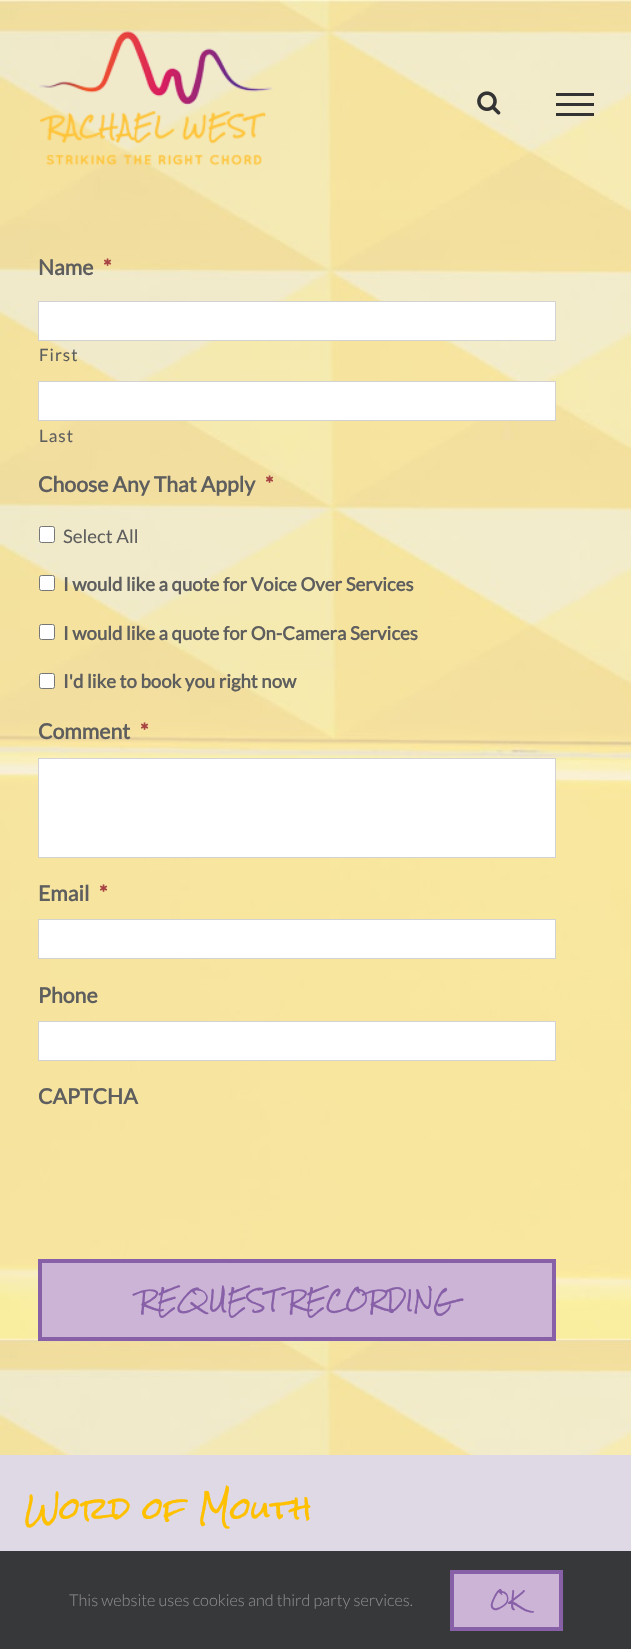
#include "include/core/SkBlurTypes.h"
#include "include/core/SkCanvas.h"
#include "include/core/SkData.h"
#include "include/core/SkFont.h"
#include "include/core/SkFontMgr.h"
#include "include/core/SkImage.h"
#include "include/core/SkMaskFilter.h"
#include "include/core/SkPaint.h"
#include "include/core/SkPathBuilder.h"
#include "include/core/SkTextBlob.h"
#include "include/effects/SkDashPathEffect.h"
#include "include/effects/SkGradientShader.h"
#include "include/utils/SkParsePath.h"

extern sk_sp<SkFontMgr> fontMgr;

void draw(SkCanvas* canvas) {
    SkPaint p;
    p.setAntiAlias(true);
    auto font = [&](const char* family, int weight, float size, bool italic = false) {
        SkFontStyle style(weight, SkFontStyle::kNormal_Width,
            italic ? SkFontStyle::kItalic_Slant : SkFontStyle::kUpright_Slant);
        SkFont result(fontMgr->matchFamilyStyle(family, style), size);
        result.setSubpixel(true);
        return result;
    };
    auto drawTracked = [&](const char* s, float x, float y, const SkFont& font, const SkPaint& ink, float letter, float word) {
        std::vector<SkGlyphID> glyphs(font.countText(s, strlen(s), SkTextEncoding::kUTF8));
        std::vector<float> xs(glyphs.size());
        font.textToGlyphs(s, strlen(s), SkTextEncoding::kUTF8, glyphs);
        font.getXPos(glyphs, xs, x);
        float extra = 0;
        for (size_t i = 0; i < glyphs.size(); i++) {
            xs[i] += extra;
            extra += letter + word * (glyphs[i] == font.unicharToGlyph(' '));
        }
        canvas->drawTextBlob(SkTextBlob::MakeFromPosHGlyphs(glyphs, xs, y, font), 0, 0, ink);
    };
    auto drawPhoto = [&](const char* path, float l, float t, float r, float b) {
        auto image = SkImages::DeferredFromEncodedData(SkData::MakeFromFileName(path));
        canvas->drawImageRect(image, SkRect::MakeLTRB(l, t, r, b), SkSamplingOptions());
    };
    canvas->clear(0xFFFFFFFF);
    drawPhoto("media/3.png", 0, 0, 631, 1455);
    drawPhoto("media/1.png", 39, 31, 274, 166);
    drawPhoto("media/2.png", 477, 91, 501, 115);
    {
        const struct { float l, t, r, b; SkColor color; } items[] = {
            {556, 93, 594, 96, 0xFF333333},
            {556, 103, 594, 106, 0xFF333333},
            {556, 113, 594, 116, 0xFF333333},
        };
        for (auto [l, t, r, b, color] : items) {
            p.setColor(color);
            canvas->drawRect(SkRect::MakeLTRB(l, t, r, b), p);
        }
    }
    auto font1 = font("Lato", 700, 21.25f);
    p.setColor(0xFF5E5E5E);
    canvas->drawString("Name", 38, 275, font1, p);
    p.setColor(0xFFA64242);
    canvas->drawString("*", 103, 275, font1, p);
    p.setColor(0xFFFFFFFF);
    canvas->drawRect(SkRect::MakeLTRB(38.5f, 301.5f, 555.5f, 340.5f), p);
    p.setStyle(SkPaint::kStroke_Style);
    p.setStrokeWidth(1);
    p.setColor(0xFFD2D2D2);
    canvas->drawRect(SkRect::MakeLTRB(38.5f, 301.5f, 555.5f, 340.5f), p);
    auto font2 = font("Lato", 400, 17);
    p.setStyle(SkPaint::kFill_Style);
    p.setColor(0xFF5E5E5E);
    drawTracked("First", 39, 361, font2, p, 1, 0);
    p.setColor(0xFFFFFFFF);
    canvas->drawRect(SkRect::MakeLTRB(38.5f, 381.5f, 555.5f, 420.5f), p);
    p.setStyle(SkPaint::kStroke_Style);
    p.setColor(0xFFD2D2D2);
    canvas->drawRect(SkRect::MakeLTRB(38.5f, 381.5f, 555.5f, 420.5f), p);
    p.setStyle(SkPaint::kFill_Style);
    p.setColor(0xFF5E5E5E);
    drawTracked("Last", 39, 442, font2, p, 1, 0);
    canvas->drawString("Choose Any That Apply", 38, 492, font1, p);
    p.setColor(0xFFA64242);
    canvas->drawString("*", 265, 492, font1, p);
    p.setColor(0xFFFFFFFF);
    canvas->drawRoundRect(SkRect::MakeLTRB(39.5f, 526.5f, 54.5f, 542.5f), 2, 2, p);
    p.setStyle(SkPaint::kStroke_Style);
    p.setColor(0xFF767676);
    canvas->drawRoundRect(SkRect::MakeLTRB(39.5f, 526.5f, 54.5f, 542.5f), 2, 2, p);
    auto font3 = font("Lato", 400, 18.6f);
    p.setStyle(SkPaint::kFill_Style);
    p.setColor(0xFF5E5E5E);
    canvas->drawString("Select All", 63, 543, font3, p);
    p.setColor(0xFFFFFFFF);
    canvas->drawRoundRect(SkRect::MakeLTRB(39.5f, 575.5f, 54.5f, 590.5f), 2, 2, p);
    p.setStyle(SkPaint::kStroke_Style);
    p.setColor(0xFF767676);
    canvas->drawRoundRect(SkRect::MakeLTRB(39.5f, 575.5f, 54.5f, 590.5f), 2, 2, p);
    auto font4 = font("Lato", 700, 18.6f);
    p.setStyle(SkPaint::kFill_Style);
    p.setColor(0xFF5E5E5E);
    canvas->drawString("I would like a quote for Voice Over Services", 63, 591, font4, p);
    p.setColor(0xFFFFFFFF);
    canvas->drawRoundRect(SkRect::MakeLTRB(39.5f, 624.5f, 54.5f, 639.5f), 2, 2, p);
    p.setStyle(SkPaint::kStroke_Style);
    p.setColor(0xFF767676);
    canvas->drawRoundRect(SkRect::MakeLTRB(39.5f, 624.5f, 54.5f, 639.5f), 2, 2, p);
    p.setStyle(SkPaint::kFill_Style);
    p.setColor(0xFF5E5E5E);
    canvas->drawString("I would like a quote for On-Camera Services", 63, 640, font4, p);
    p.setColor(0xFFFFFFFF);
    canvas->drawRoundRect(SkRect::MakeLTRB(39.5f, 673.5f, 54.5f, 688.5f), 2, 2, p);
    p.setStyle(SkPaint::kStroke_Style);
    p.setColor(0xFF767676);
    canvas->drawRoundRect(SkRect::MakeLTRB(39.5f, 673.5f, 54.5f, 688.5f), 2, 2, p);
    p.setStyle(SkPaint::kFill_Style);
    p.setColor(0xFF5E5E5E);
    canvas->drawString("I'd like to book you right now", 63, 688, font4, p);
    canvas->drawString("Comment", 38, 739, font1, p);
    p.setColor(0xFFA64242);
    canvas->drawString("*", 140, 739, font1, p);
    p.setColor(0xFFFFFFFF);
    canvas->drawRect(SkRect::MakeLTRB(38.5f, 758.5f, 555.5f, 857.5f), p);
    p.setStyle(SkPaint::kStroke_Style);
    p.setColor(0xFFD2D2D2);
    canvas->drawRect(SkRect::MakeLTRB(38.5f, 758.5f, 555.5f, 857.5f), p);
    p.setStyle(SkPaint::kFill_Style);
    p.setColor(0xFF5E5E5E);
    canvas->drawString("Email", 38, 901, font1, p);
    p.setColor(0xFFA64242);
    canvas->drawString("*", 99, 901, font1, p);
    p.setColor(0xFFFFFFFF);
    canvas->drawRect(SkRect::MakeLTRB(38.5f, 919.5f, 555.5f, 958.5f), p);
    p.setStyle(SkPaint::kStroke_Style);
    p.setColor(0xFFD2D2D2);
    canvas->drawRect(SkRect::MakeLTRB(38.5f, 919.5f, 555.5f, 958.5f), p);
    p.setStyle(SkPaint::kFill_Style);
    p.setColor(0xFF5E5E5E);
    canvas->drawString("Phone", 38, 1003, font1, p);
    p.setColor(0xFFFFFFFF);
    canvas->drawRect(SkRect::MakeLTRB(38.5f, 1021.5f, 555.5f, 1060.5f), p);
    p.setStyle(SkPaint::kStroke_Style);
    p.setColor(0xFFD2D2D2);
    canvas->drawRect(SkRect::MakeLTRB(38.5f, 1021.5f, 555.5f, 1060.5f), p);
    p.setStyle(SkPaint::kFill_Style);
    p.setColor(0xFF5E5E5E);
    canvas->drawString("CAPTCHA", 38, 1104, font1, p);
    p.setColor(0xFFCCB4D6);
    canvas->drawRect(SkRect::MakeLTRB(40, 1261, 554, 1339), p);
    p.setStyle(SkPaint::kStroke_Style);
    p.setStrokeWidth(4);
    p.setColor(0xFF8760A8);
    canvas->drawRect(SkRect::MakeLTRB(40, 1261, 554, 1339), p);
    auto font5 = font("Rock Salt", 400, 21.25f);
    p.setStyle(SkPaint::kFill_Style);
    canvas->drawString("REQUEST RECORDING", 139, 1309, font5, p);
    p.setColor(0xFFDFD9E5);
    canvas->drawRect(SkRect::MakeLTRB(0, 1455, 631, 1551), p);
    auto font6 = font("Rock Salt", 400, 30);
    p.setColor(0xFFFFC000);
    canvas->drawString("Word of Mouth", 25, 1520, font6, p);
    p.setColor(0xFF363839);
    canvas->drawRect(SkRect::MakeLTRB(0, 1551, 631, 1649), p);
    auto font7 = font("Lato", 300, 16.25f);
    p.setColor(0xFF8C8989);
    canvas->drawString("This website uses cookies and third party services.", 69, 1606, font7, p);
    p.setColor(0xFFCCB4D6);
    canvas->drawRect(SkRect::MakeLTRB(452, 1572, 561, 1629), p);
    p.setStyle(SkPaint::kStroke_Style);
    p.setColor(0xFF8760A8);
    canvas->drawRect(SkRect::MakeLTRB(452, 1572, 561, 1629), p);
    auto font8 = font("Rock Salt", 400, 18);
    p.setStyle(SkPaint::kFill_Style);
    canvas->drawString("OK", 490, 1608, font8, p);
}
